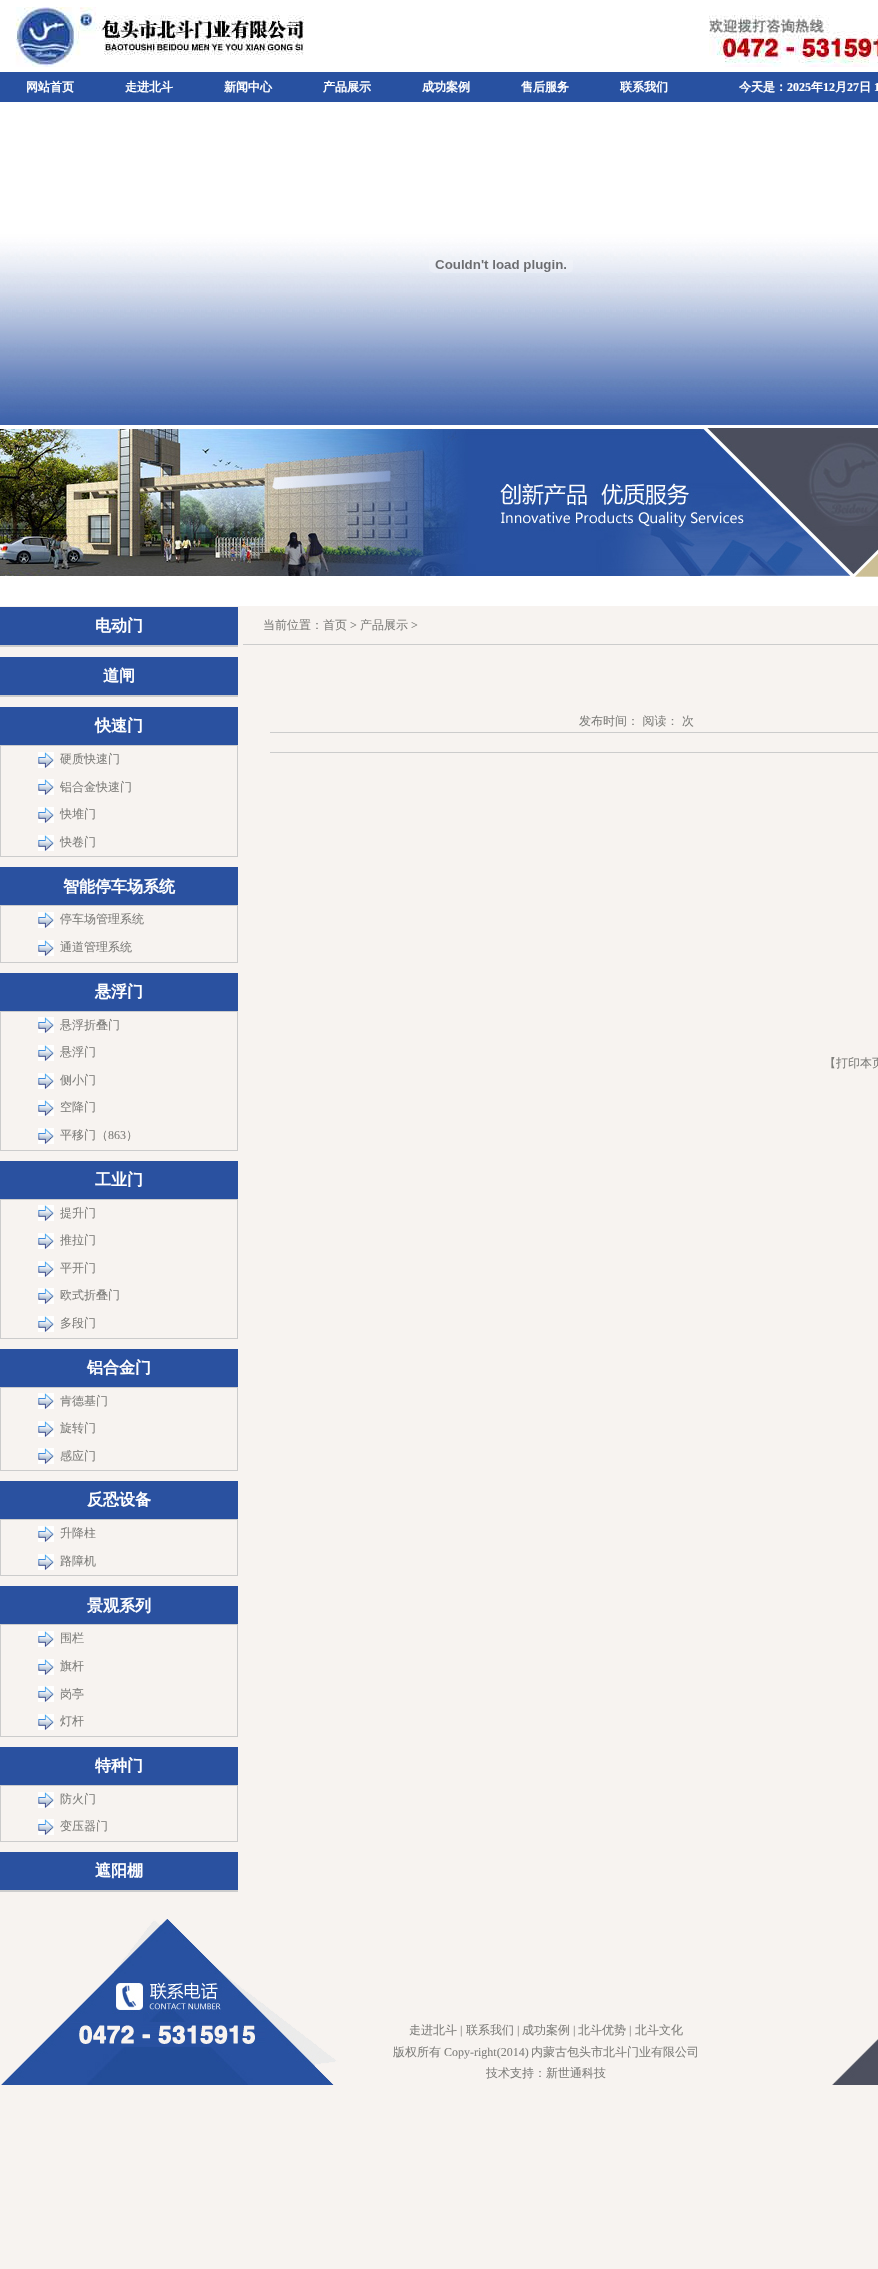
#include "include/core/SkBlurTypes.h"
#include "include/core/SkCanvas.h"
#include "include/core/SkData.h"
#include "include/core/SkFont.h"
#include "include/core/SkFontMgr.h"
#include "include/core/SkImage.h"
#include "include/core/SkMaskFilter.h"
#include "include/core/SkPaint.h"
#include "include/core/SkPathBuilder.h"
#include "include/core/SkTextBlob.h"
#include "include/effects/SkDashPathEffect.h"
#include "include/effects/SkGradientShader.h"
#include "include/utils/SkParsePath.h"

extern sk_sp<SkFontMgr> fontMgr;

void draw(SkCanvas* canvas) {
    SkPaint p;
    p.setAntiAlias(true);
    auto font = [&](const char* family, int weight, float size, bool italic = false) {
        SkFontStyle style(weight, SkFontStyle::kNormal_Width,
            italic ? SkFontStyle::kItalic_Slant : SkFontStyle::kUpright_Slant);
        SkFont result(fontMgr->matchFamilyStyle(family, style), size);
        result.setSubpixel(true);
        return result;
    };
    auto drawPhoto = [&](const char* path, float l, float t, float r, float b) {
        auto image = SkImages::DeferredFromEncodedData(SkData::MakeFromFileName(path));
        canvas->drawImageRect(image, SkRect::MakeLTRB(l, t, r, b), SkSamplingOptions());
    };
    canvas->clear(0xFFF7F3F0);
    drawPhoto("media/1.png", 0, 0, 878, 428);
    drawPhoto("media/2.png", 15, 7, 304, 67);
    drawPhoto("media/3.png", 709, 15, 878, 67);
    auto font1 = font("WenQuanYi Zen Hei", 700, 12);
    p.setColor(0xFFFFFFFF);
    {
        const struct { const char* s; float x, y; } items[] = {
            {"网站首页", 26, 91},
            {"走进北斗", 125, 91},
            {"新闻中心", 224, 91},
            {"产品展示", 323, 91},
            {"成功案例", 422, 91},
            {"售后服务", 521, 91},
            {"联系我们", 620, 91},
            {"今天是：", 739, 91},
        };
        for (auto [s, x, y] : items) {
            canvas->drawString(s, x, y, font1, p);
        }
    }
    auto font2 = font("Liberation Serif", 700, 12);
    canvas->drawString("2025", 787, 91, font2, p);
    canvas->drawString("年", 811, 91, font1, p);
    canvas->drawString("12", 823, 91, font2, p);
    canvas->drawString("月", 835, 91, font1, p);
    canvas->drawString("27", 847, 91, font2, p);
    canvas->drawString("日", 859, 91, font1, p);
    canvas->drawString("1", 874, 91, font2, p);
    drawPhoto("media/4.png", 429, 260, 573, 273);
    drawPhoto("media/5.png", 0, 428, 878, 606);
    p.setColor(0xFF2A51A0);
    canvas->drawRect(SkRect::MakeLTRB(0, 607, 238, 645), p);
    auto font3 = font("WenQuanYi Zen Hei", 700, 16);
    p.setColor(0xFFFFFFFF);
    canvas->drawString("电动门", 95, 631, font3, p);
    p.setColor(0xFFCCCCCC);
    canvas->drawRect(SkRect::MakeLTRB(0, 645, 238, 647), p);
    p.setColor(0xFF2A51A0);
    canvas->drawRect(SkRect::MakeLTRB(0, 657, 238, 695), p);
    p.setColor(0xFFFFFFFF);
    canvas->drawString("道闸", 103, 681, font3, p);
    p.setColor(0xFFCCCCCC);
    canvas->drawRect(SkRect::MakeLTRB(0, 695, 238, 697), p);
    p.setColor(0xFF2A51A0);
    canvas->drawRect(SkRect::MakeLTRB(0, 707, 238, 745), p);
    p.setColor(0xFFFFFFFF);
    canvas->drawString("快速门", 95, 731, font3, p);
    p.setStyle(SkPaint::kStroke_Style);
    p.setStrokeWidth(1);
    p.setColor(0xFFCCCCCC);
    canvas->drawRect(SkRect::MakeLTRB(0.5f, 745.5f, 237.5f, 856.5f), p);
    drawPhoto("media/6.png", 38, 752, 54, 768);
    auto font4 = font("WenQuanYi Zen Hei", 500, 12);
    p.setStyle(SkPaint::kFill_Style);
    p.setColor(0xFF7F7F7C);
    canvas->drawString("硬质快速门", 60, 763, font4, p);
    drawPhoto("media/6.png", 38, 779, 54, 795);
    canvas->drawString("铝合金快速门", 60, 791, font4, p);
    drawPhoto("media/6.png", 38, 807, 54, 823);
    canvas->drawString("快堆门", 60, 818, font4, p);
    drawPhoto("media/6.png", 38, 835, 54, 851);
    canvas->drawString("快卷门", 60, 846, font4, p);
    p.setColor(0xFF2A51A0);
    canvas->drawRect(SkRect::MakeLTRB(0, 867, 238, 905), p);
    p.setColor(0xFFFFFFFF);
    canvas->drawString("智能停车场系统", 63, 892, font3, p);
    p.setStyle(SkPaint::kStroke_Style);
    p.setColor(0xFFCCCCCC);
    canvas->drawRect(SkRect::MakeLTRB(0.5f, 905.5f, 237.5f, 962.5f), p);
    drawPhoto("media/6.png", 38, 912, 54, 928);
    p.setStyle(SkPaint::kFill_Style);
    p.setColor(0xFF7F7F7C);
    canvas->drawString("停车场管理系统", 60, 923, font4, p);
    drawPhoto("media/6.png", 38, 940, 54, 956);
    canvas->drawString("通道管理系统", 60, 951, font4, p);
    p.setColor(0xFF2A51A0);
    canvas->drawRect(SkRect::MakeLTRB(0, 973, 238, 1011), p);
    p.setColor(0xFFFFFFFF);
    canvas->drawString("悬浮门", 95, 997, font3, p);
    p.setStyle(SkPaint::kStroke_Style);
    p.setColor(0xFFCCCCCC);
    canvas->drawRect(SkRect::MakeLTRB(0.5f, 1011.5f, 237.5f, 1150.5f), p);
    drawPhoto("media/6.png", 38, 1017, 54, 1033);
    p.setStyle(SkPaint::kFill_Style);
    p.setColor(0xFF7F7F7C);
    canvas->drawString("悬浮折叠门", 60, 1029, font4, p);
    drawPhoto("media/6.png", 38, 1045, 54, 1061);
    canvas->drawString("悬浮门", 60, 1056, font4, p);
    drawPhoto("media/6.png", 38, 1073, 54, 1089);
    canvas->drawString("侧小门", 60, 1084, font4, p);
    drawPhoto("media/6.png", 38, 1100, 54, 1116);
    canvas->drawString("空降门", 60, 1111, font4, p);
    drawPhoto("media/6.png", 38, 1128, 54, 1144);
    canvas->drawString("平移门（", 60, 1139, font4, p);
    auto font5 = font("Liberation Serif", 400, 12);
    canvas->drawString("863", 108, 1139, font5, p);
    canvas->drawString("）", 126, 1139, font4, p);
    p.setColor(0xFF2A51A0);
    canvas->drawRect(SkRect::MakeLTRB(0, 1161, 238, 1199), p);
    p.setColor(0xFFFFFFFF);
    canvas->drawString("工业门", 95, 1185, font3, p);
    p.setStyle(SkPaint::kStroke_Style);
    p.setColor(0xFFCCCCCC);
    canvas->drawRect(SkRect::MakeLTRB(0.5f, 1199.5f, 237.5f, 1338.5f), p);
    drawPhoto("media/6.png", 38, 1205, 54, 1221);
    p.setStyle(SkPaint::kFill_Style);
    p.setColor(0xFF7F7F7C);
    canvas->drawString("提升门", 60, 1217, font4, p);
    drawPhoto("media/6.png", 38, 1233, 54, 1249);
    canvas->drawString("推拉门", 60, 1244, font4, p);
    drawPhoto("media/6.png", 38, 1261, 54, 1277);
    canvas->drawString("平开门", 60, 1272, font4, p);
    drawPhoto("media/6.png", 38, 1288, 54, 1304);
    canvas->drawString("欧式折叠门", 60, 1299, font4, p);
    drawPhoto("media/6.png", 38, 1316, 54, 1332);
    canvas->drawString("多段门", 60, 1327, font4, p);
    p.setColor(0xFF2A51A0);
    canvas->drawRect(SkRect::MakeLTRB(0, 1349, 238, 1387), p);
    p.setColor(0xFFFFFFFF);
    canvas->drawString("铝合金门", 87, 1373, font3, p);
    p.setStyle(SkPaint::kStroke_Style);
    p.setColor(0xFFCCCCCC);
    canvas->drawRect(SkRect::MakeLTRB(0.5f, 1387.5f, 237.5f, 1470.5f), p);
    drawPhoto("media/6.png", 38, 1393, 54, 1409);
    p.setStyle(SkPaint::kFill_Style);
    p.setColor(0xFF7F7F7C);
    canvas->drawString("肯德基门", 60, 1405, font4, p);
    drawPhoto("media/6.png", 38, 1421, 54, 1437);
    canvas->drawString("旋转门", 60, 1432, font4, p);
    drawPhoto("media/6.png", 38, 1448, 54, 1464);
    canvas->drawString("感应门", 60, 1460, font4, p);
    p.setColor(0xFF2A51A0);
    canvas->drawRect(SkRect::MakeLTRB(0, 1481, 238, 1519), p);
    p.setColor(0xFFFFFFFF);
    canvas->drawString("反恐设备", 87, 1505, font3, p);
    p.setStyle(SkPaint::kStroke_Style);
    p.setColor(0xFFCCCCCC);
    canvas->drawRect(SkRect::MakeLTRB(0.5f, 1519.5f, 237.5f, 1575.5f), p);
    drawPhoto("media/6.png", 38, 1526, 54, 1542);
    p.setStyle(SkPaint::kFill_Style);
    p.setColor(0xFF7F7F7C);
    canvas->drawString("升降柱", 60, 1537, font4, p);
    drawPhoto("media/6.png", 38, 1554, 54, 1570);
    canvas->drawString("路障机", 60, 1565, font4, p);
    p.setColor(0xFF2A51A0);
    canvas->drawRect(SkRect::MakeLTRB(0, 1586, 238, 1624), p);
    p.setColor(0xFFFFFFFF);
    canvas->drawString("景观系列", 87, 1611, font3, p);
    p.setStyle(SkPaint::kStroke_Style);
    p.setColor(0xFFCCCCCC);
    canvas->drawRect(SkRect::MakeLTRB(0.5f, 1624.5f, 237.5f, 1736.5f), p);
    drawPhoto("media/6.png", 38, 1631, 54, 1647);
    p.setStyle(SkPaint::kFill_Style);
    p.setColor(0xFF7F7F7C);
    canvas->drawString("围栏", 60, 1642, font4, p);
    drawPhoto("media/6.png", 38, 1659, 54, 1675);
    canvas->drawString("旗杆", 60, 1670, font4, p);
    drawPhoto("media/6.png", 38, 1686, 54, 1702);
    canvas->drawString("岗亭", 60, 1698, font4, p);
    drawPhoto("media/6.png", 38, 1714, 54, 1730);
    canvas->drawString("灯杆", 60, 1725, font4, p);
    p.setColor(0xFF2A51A0);
    canvas->drawRect(SkRect::MakeLTRB(0, 1747, 238, 1785), p);
    p.setColor(0xFFFFFFFF);
    canvas->drawString("特种门", 95, 1771, font3, p);
    p.setStyle(SkPaint::kStroke_Style);
    p.setColor(0xFFCCCCCC);
    canvas->drawRect(SkRect::MakeLTRB(0.5f, 1785.5f, 237.5f, 1841.5f), p);
    drawPhoto("media/6.png", 38, 1792, 54, 1808);
    p.setStyle(SkPaint::kFill_Style);
    p.setColor(0xFF7F7F7C);
    canvas->drawString("防火门", 60, 1803, font4, p);
    drawPhoto("media/6.png", 38, 1819, 54, 1835);
    canvas->drawString("变压器门", 60, 1830, font4, p);
    p.setColor(0xFF2A51A0);
    canvas->drawRect(SkRect::MakeLTRB(0, 1852, 238, 1890), p);
    p.setColor(0xFFFFFFFF);
    canvas->drawString("遮阳棚", 95, 1876, font3, p);
    p.setColor(0xFFCCCCCC);
    canvas->drawRect(SkRect::MakeLTRB(0, 1890, 238, 1892), p);
    canvas->drawRect(SkRect::MakeLTRB(243, 644, 878, 645), p);
    p.setColor(0xFF7F7F7C);
    canvas->drawString("当前位置：", 263, 629, font4, p);
    canvas->drawString("首页", 323, 629, font4, p);
    canvas->drawString(">", 350, 629, font5, p);
    canvas->drawString("产品展示", 360, 629, font4, p);
    canvas->drawString(">", 411, 629, font5, p);
    p.setColor(0xFFCCCCCC);
    canvas->drawRect(SkRect::MakeLTRB(270, 732, 878, 733), p);
    p.setColor(0xFF7F7F7C);
    canvas->drawString("发布时间： 阅读：", 579, 725, font4, p);
    canvas->drawString("次", 682, 725, font4, p);
    p.setColor(0xFFCCCCCC);
    canvas->drawRect(SkRect::MakeLTRB(270, 752, 878, 753), p);
    p.setColor(0xFF7F7F7C);
    canvas->drawString("【打印本页", 824, 1067, font4, p);
    drawPhoto("media/7.png", 1, 1919, 878, 2085);
    canvas->drawString("走进北斗", 409, 2034, font4, p);
    canvas->drawString("|", 460, 2034, font5, p);
    canvas->drawString("联系我们", 466, 2034, font4, p);
    canvas->drawString("|", 517, 2034, font5, p);
    canvas->drawString("成功案例", 522, 2034, font4, p);
    canvas->drawString("|", 573, 2034, font5, p);
    canvas->drawString("北斗优势", 578, 2034, font4, p);
    canvas->drawString("|", 629, 2034, font5, p);
    canvas->drawString("北斗文化", 635, 2034, font4, p);
    canvas->drawString("版权所有", 393, 2056, font4, p);
    canvas->drawString("Copy-right(2014)", 444, 2056, font5, p);
    canvas->drawString("内蒙古包头市北斗门业有限公司", 531, 2056, font4, p);
    canvas->drawString("技术支持：新世通科技", 486, 2077, font4, p);
}
